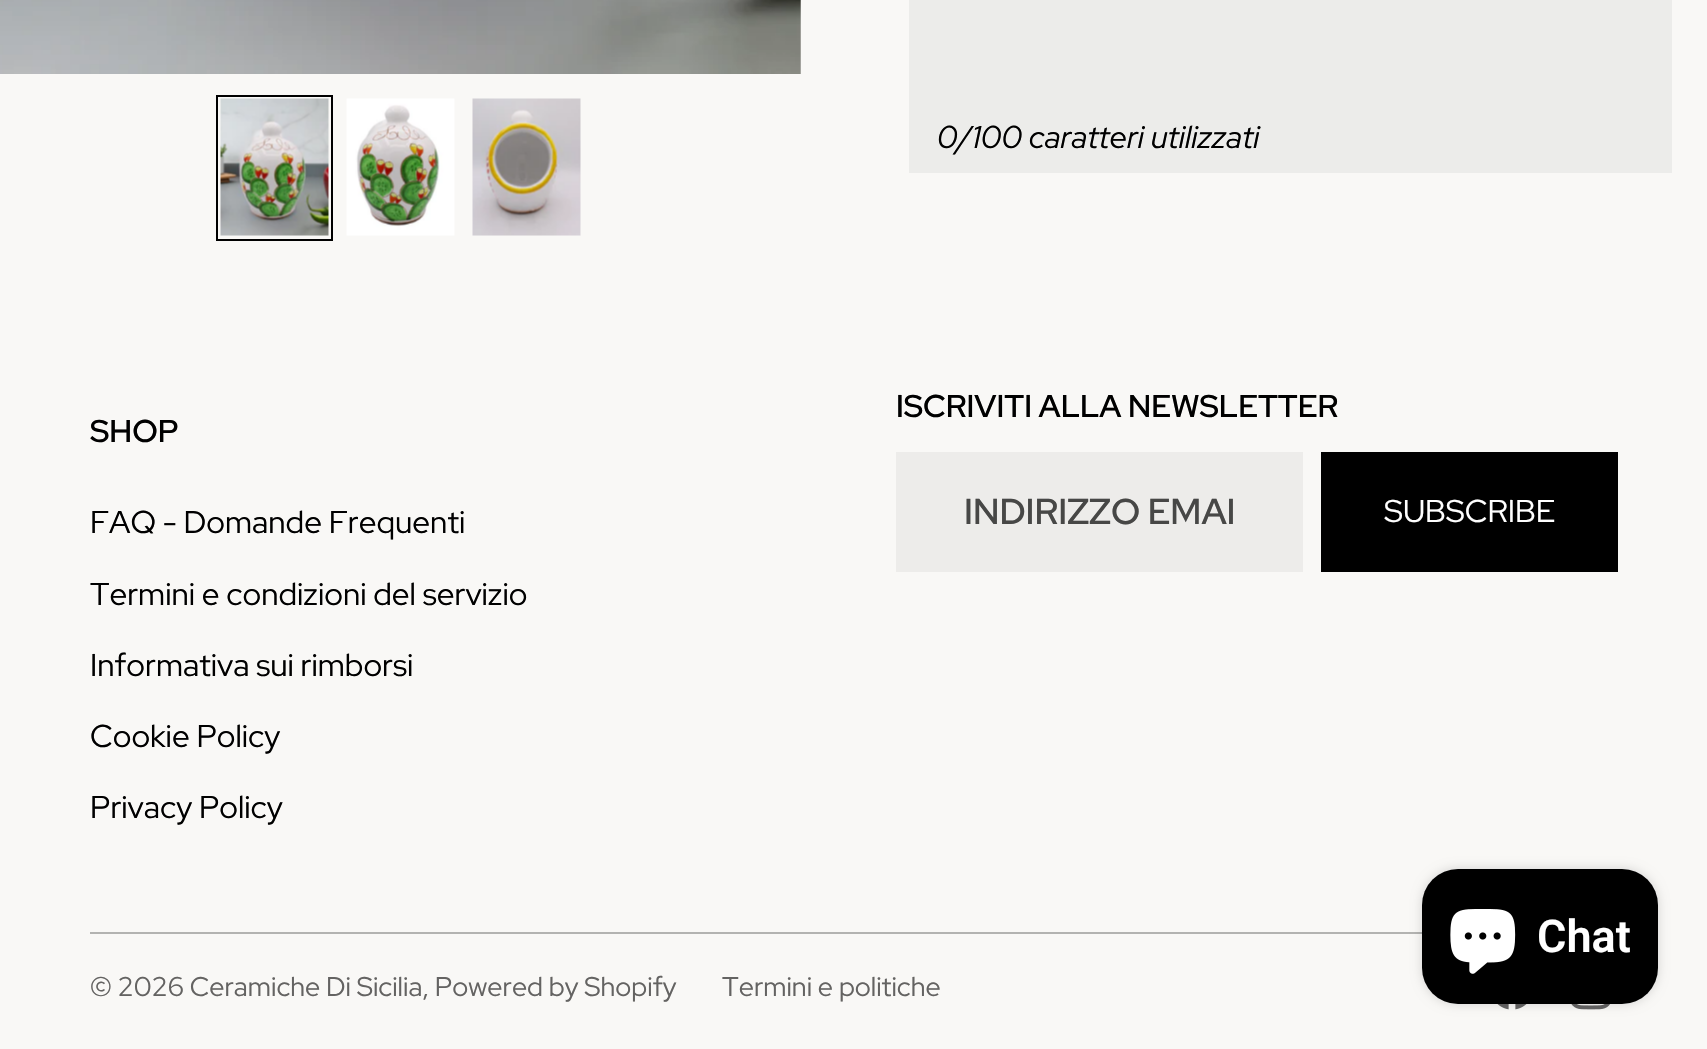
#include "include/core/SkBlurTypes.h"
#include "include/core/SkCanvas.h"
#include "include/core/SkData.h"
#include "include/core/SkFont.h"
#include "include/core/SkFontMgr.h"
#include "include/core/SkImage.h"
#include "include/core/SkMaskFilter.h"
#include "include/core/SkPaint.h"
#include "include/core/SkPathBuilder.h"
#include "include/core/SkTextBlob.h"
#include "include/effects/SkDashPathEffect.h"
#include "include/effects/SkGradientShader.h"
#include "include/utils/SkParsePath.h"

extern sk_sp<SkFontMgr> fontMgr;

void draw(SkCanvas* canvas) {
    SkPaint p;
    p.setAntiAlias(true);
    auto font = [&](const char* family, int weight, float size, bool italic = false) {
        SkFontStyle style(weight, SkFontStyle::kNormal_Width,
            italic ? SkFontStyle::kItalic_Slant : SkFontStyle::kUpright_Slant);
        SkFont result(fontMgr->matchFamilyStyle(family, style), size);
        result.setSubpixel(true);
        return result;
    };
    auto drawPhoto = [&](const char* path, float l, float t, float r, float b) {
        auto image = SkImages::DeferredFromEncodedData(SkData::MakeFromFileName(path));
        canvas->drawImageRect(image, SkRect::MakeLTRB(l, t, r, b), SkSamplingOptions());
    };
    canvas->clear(0xFFF9F8F6);
    drawPhoto("media/1.png", 0, 0, 801, 74);
    drawPhoto("media/2.png", 220, 98, 329, 236);
    p.setStyle(SkPaint::kStroke_Style);
    p.setStrokeWidth(2);
    p.setColor(0xFF000000);
    canvas->drawRect(SkRect::MakeLTRB(217, 96, 332, 240), p);
    drawPhoto("media/3.png", 346, 98, 455, 236);
    drawPhoto("media/4.png", 472, 98, 581, 236);
    p.setStyle(SkPaint::kFill_Style);
    p.setColor(0xFFECECEA);
    canvas->drawRect(SkRect::MakeLTRB(909, 0, 1672, 173), p);
    auto font1 = font("Red Hat Display", 400, 31.5f, true);
    p.setColor(0xFF000000);
    canvas->drawString("0/100 caratteri utilizzati", 937, 148, font1, p);
    auto font2 = font("Red Hat Display", 600, 31.5f);
    canvas->drawString("SHOP", 90, 442, font2, p);
    auto font3 = font("Red Hat Display", 400, 31.5f);
    {
        const struct { const char* s; float x, y; } items[] = {
            {"FAQ - Domande Frequenti", 90, 533},
            {"Termini e condizioni del servizio", 90, 605},
            {"Informativa sui rimborsi", 90, 676},
            {"Cookie Policy", 90, 747},
            {"Privacy Policy", 90, 818},
        };
        for (auto [s, x, y] : items) {
            canvas->drawString(s, x, y, font3, p);
        }
    }
    canvas->drawString("ISCRIVITI ALLA NEWSLETTER", 896, 417, font2, p);
    p.setColor(0xFFEDECEA);
    canvas->drawRect(SkRect::MakeLTRB(896, 452, 1303, 572), p);
    auto font4 = font("Red Hat Display", 600, 36);
    p.setColor(0xFF474746);
    canvas->drawString("INDIRIZZO EMAI", 964, 524, font4, p);
    p.setColor(0xFF000000);
    canvas->drawRect(SkRect::MakeLTRB(1321, 452, 1618, 572), p);
    p.setColor(0xFFFFFFFF);
    canvas->drawString("SUBSCRIBE", 1384, 522, font3, p);
    p.setColor(0xFFB3B3B1);
    canvas->drawRect(SkRect::MakeLTRB(90, 932, 1422, 934), p);
    auto font5 = font("Red Hat Display", 400, 27);
    p.setColor(0xFF646362);
    canvas->drawString("© 2026 Ceramiche Di Sicilia, Powered by Shopify", 90, 996, font5, p);
    canvas->drawString("Termini e politiche", 722, 996, font5, p);
    drawPhoto("media/5.png", 1497, 1004, 1527, 1010);
    drawPhoto("media/6.png", 1571, 1004, 1610, 1010);
    p.setColor(0x26000000);
    p.setMaskFilter(SkMaskFilter::MakeBlur(kNormal_SkBlurStyle, 5.5f));
    canvas->drawRoundRect(SkRect::MakeLTRB(1422, 869, 1658, 1004), 36, 36, p);
    p.setMaskFilter(nullptr);
    p.setColor(0xFF000000);
    canvas->drawRoundRect(SkRect::MakeLTRB(1422, 869, 1658, 1004), 36, 36, p);
    drawPhoto("media/7.png", 1450, 909, 1516, 974);
    auto font6 = font("Roboto", 600, 45);
    p.setColor(0xFFFFFFFF);
    canvas->drawString("Chat", 1537, 952, font6, p);
}
